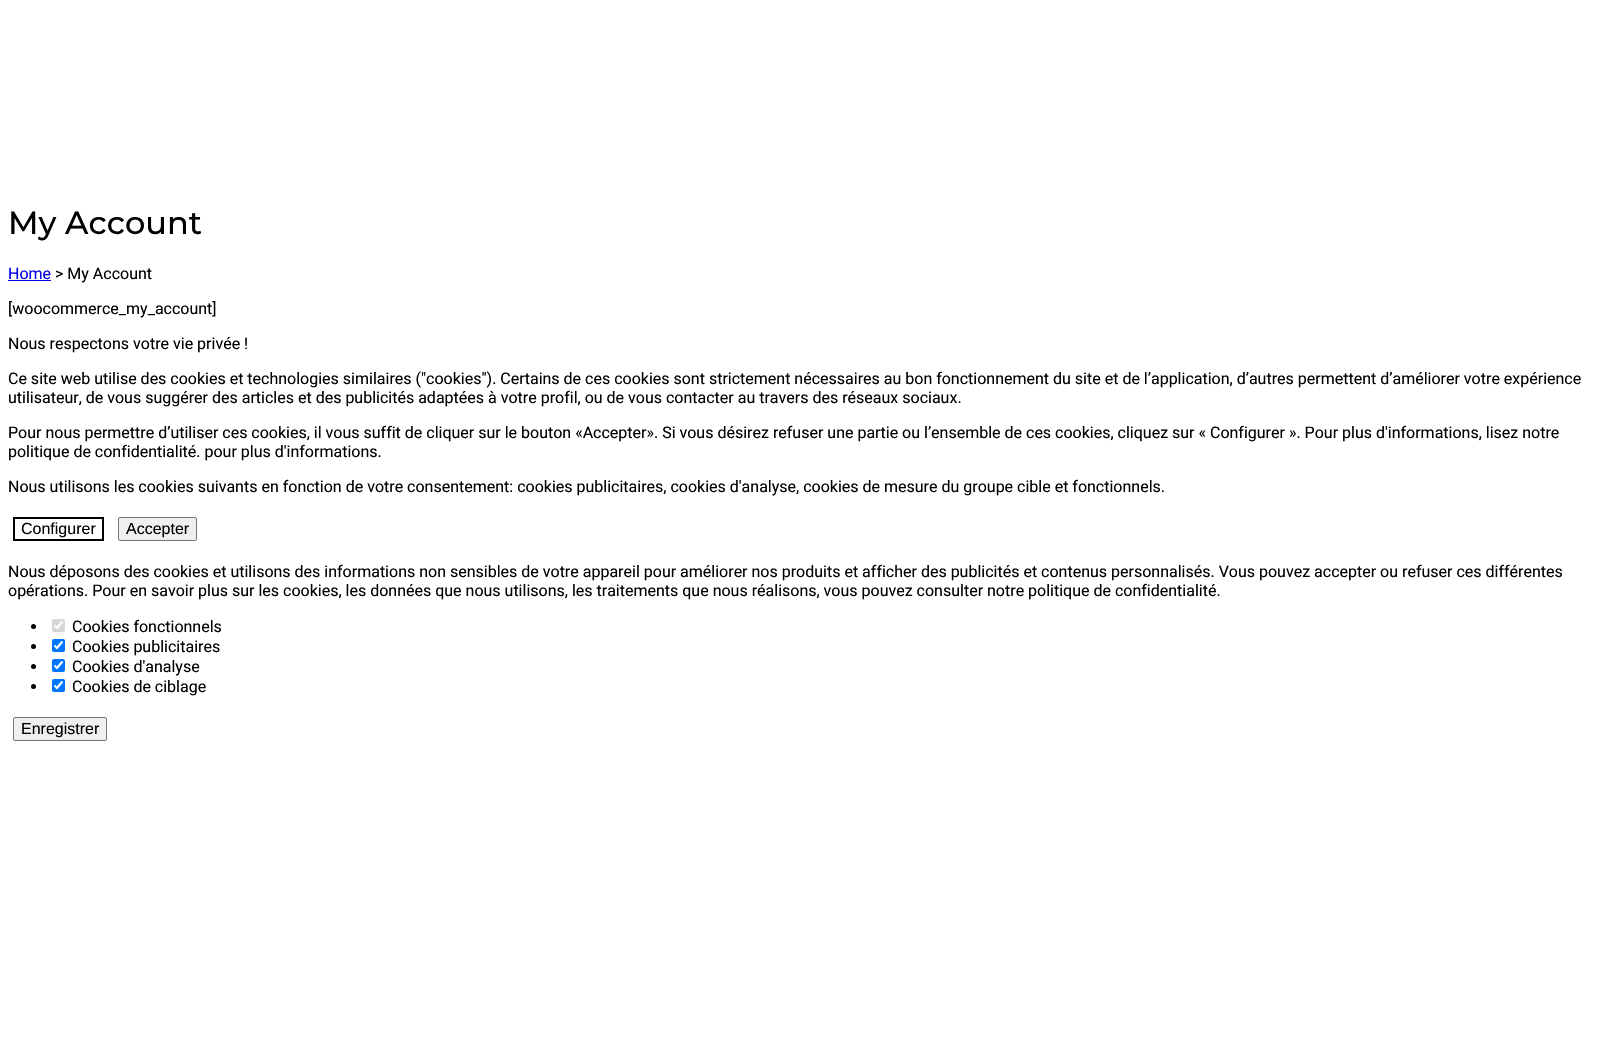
#include "include/core/SkBlurTypes.h"
#include "include/core/SkCanvas.h"
#include "include/core/SkData.h"
#include "include/core/SkFont.h"
#include "include/core/SkFontMgr.h"
#include "include/core/SkImage.h"
#include "include/core/SkMaskFilter.h"
#include "include/core/SkPaint.h"
#include "include/core/SkPathBuilder.h"
#include "include/core/SkTextBlob.h"
#include "include/effects/SkDashPathEffect.h"
#include "include/effects/SkGradientShader.h"
#include "include/utils/SkParsePath.h"

extern sk_sp<SkFontMgr> fontMgr;

void draw(SkCanvas* canvas) {
    SkPaint p;
    p.setAntiAlias(true);
    auto font = [&](const char* family, int weight, float size, bool italic = false) {
        SkFontStyle style(weight, SkFontStyle::kNormal_Width,
            italic ? SkFontStyle::kItalic_Slant : SkFontStyle::kUpright_Slant);
        SkFont result(fontMgr->matchFamilyStyle(family, style), size);
        result.setSubpixel(true);
        return result;
    };
    canvas->clear(0xFFFFFFFF);
    auto font1 = font("Montserrat", 500, 32);
    p.setColor(0xFF000000);
    canvas->drawString("My Account", 8, 234, font1, p);
    auto font2 = font("Roboto", 400, 16);
    p.setColor(0xFF0000EE);
    canvas->drawString("Home", 8, 279, font2, p);
    canvas->drawRect(SkRect::MakeLTRB(8, 280, 51, 281), p);
    p.setColor(0xFF000000);
    {
        const struct { const char* s; float x, y; } items[] = {
            {"> My Account", 55, 279},
            {"[woocommerce_my_account]", 8, 314},
            {"Nous respectons votre vie privée !", 8, 349},
            {"Ce site web utilise des cookies et technologies similaires (\"cookies\"). Certains de ces cookies sont strictement nécessaires au bon fonctionnement du site et de l’application, d’autres permettent d’améliorer votre expérience", 8, 384},
            {"utilisateur, de vous suggérer des articles et des publicités adaptées à votre profil, ou de vous contacter au travers des réseaux sociaux.", 8, 403},
            {"Pour nous permettre d’utiliser ces cookies, il vous suffit de cliquer sur le bouton «Accepter». Si vous désirez refuser une partie ou l’ensemble de ces cookies, cliquez sur « Configurer ». Pour plus d'informations, lisez notre", 8, 438},
            {"politique de confidentialité. pour plus d'informations.", 8, 457},
            {"Nous utilisons les cookies suivants en fonction de votre consentement: cookies publicitaires, cookies d'analyse, cookies de mesure du groupe cible et fonctionnels.", 8, 492},
        };
        for (auto [s, x, y] : items) {
            canvas->drawString(s, x, y, font2, p);
        }
    }
    p.setStyle(SkPaint::kStroke_Style);
    p.setStrokeWidth(2);
    canvas->drawRect(SkRect::MakeLTRB(14, 518, 103, 540), p);
    auto font3 = font("Liberation Sans", 400, 16);
    p.setStyle(SkPaint::kFill_Style);
    canvas->drawString("Configurer", 21, 534, font3, p);
    p.setColor(0xFFEFEFEF);
    canvas->drawRoundRect(SkRect::MakeLTRB(118.5f, 517.5f, 196.5f, 540.5f), 1.5f, 1.5f, p);
    p.setStyle(SkPaint::kStroke_Style);
    p.setStrokeWidth(1);
    p.setColor(0xFF767676);
    canvas->drawRoundRect(SkRect::MakeLTRB(118.5f, 517.5f, 196.5f, 540.5f), 1.5f, 1.5f, p);
    p.setStyle(SkPaint::kFill_Style);
    p.setColor(0xFF000000);
    canvas->drawString("Accepter", 126, 534, font3, p);
    canvas->drawString("Nous déposons des cookies et utilisons des informations non sensibles de votre appareil pour améliorer nos produits et afficher des publicités et contenus personnalisés. Vous pouvez accepter ou refuser ces différentes", 8, 577, font2, p);
    canvas->drawString("opérations. Pour en savoir plus sur les cookies, les données que nous utilisons, les traitements que nous réalisons, vous pouvez consulter notre politique de confidentialité.", 8, 596, font2, p);
    canvas->drawCircle(33.5f, 626.5f, 2.5f, p);
    p.setColor(0xFFD6D6D6);
    canvas->drawRoundRect(SkRect::MakeLTRB(52, 619, 65, 632), 2, 2, p);
    p.setStyle(SkPaint::kStroke_Style);
    p.setStrokeWidth(2.1f);
    p.setColor(0xFFFFFFFF);
    canvas->drawPath(SkPathBuilder().moveTo(54.5f, 625.5f).lineTo(57, 628).lineTo(62.5f, 621.5f).detach(), p);
    p.setStyle(SkPaint::kFill_Style);
    p.setColor(0xFF000000);
    canvas->drawString("Cookies fonctionnels", 72, 632, font2, p);
    canvas->drawCircle(33.5f, 646.5f, 2.5f, p);
    p.setColor(0xFF0075FF);
    canvas->drawRoundRect(SkRect::MakeLTRB(52, 639, 65, 652), 2, 2, p);
    p.setStyle(SkPaint::kStroke_Style);
    p.setColor(0xFFFFFFFF);
    canvas->drawPath(SkPathBuilder().moveTo(54.5f, 645.5f).lineTo(57, 648).lineTo(62.5f, 641.5f).detach(), p);
    p.setStyle(SkPaint::kFill_Style);
    p.setColor(0xFF000000);
    canvas->drawString("Cookies publicitaires", 72, 652, font2, p);
    canvas->drawCircle(33.5f, 666.5f, 2.5f, p);
    p.setColor(0xFF0075FF);
    canvas->drawRoundRect(SkRect::MakeLTRB(52, 659, 65, 672), 2, 2, p);
    p.setStyle(SkPaint::kStroke_Style);
    p.setColor(0xFFFFFFFF);
    canvas->drawPath(SkPathBuilder().moveTo(54.5f, 665.5f).lineTo(57, 668).lineTo(62.5f, 661.5f).detach(), p);
    p.setStyle(SkPaint::kFill_Style);
    p.setColor(0xFF000000);
    canvas->drawString("Cookies d'analyse", 72, 672, font2, p);
    canvas->drawCircle(33.5f, 686.5f, 2.5f, p);
    p.setColor(0xFF0075FF);
    canvas->drawRoundRect(SkRect::MakeLTRB(52, 679, 65, 692), 2, 2, p);
    p.setStyle(SkPaint::kStroke_Style);
    p.setColor(0xFFFFFFFF);
    canvas->drawPath(SkPathBuilder().moveTo(54.5f, 685.5f).lineTo(57, 688).lineTo(62.5f, 681.5f).detach(), p);
    p.setStyle(SkPaint::kFill_Style);
    p.setColor(0xFF000000);
    canvas->drawString("Cookies de ciblage", 72, 692, font2, p);
    p.setColor(0xFFEFEFEF);
    canvas->drawRoundRect(SkRect::MakeLTRB(13.5f, 717.5f, 106.5f, 740.5f), 1.5f, 1.5f, p);
    p.setStyle(SkPaint::kStroke_Style);
    p.setStrokeWidth(1);
    p.setColor(0xFF767676);
    canvas->drawRoundRect(SkRect::MakeLTRB(13.5f, 717.5f, 106.5f, 740.5f), 1.5f, 1.5f, p);
    p.setStyle(SkPaint::kFill_Style);
    p.setColor(0xFF000000);
    canvas->drawString("Enregistrer", 21, 734, font3, p);
}
